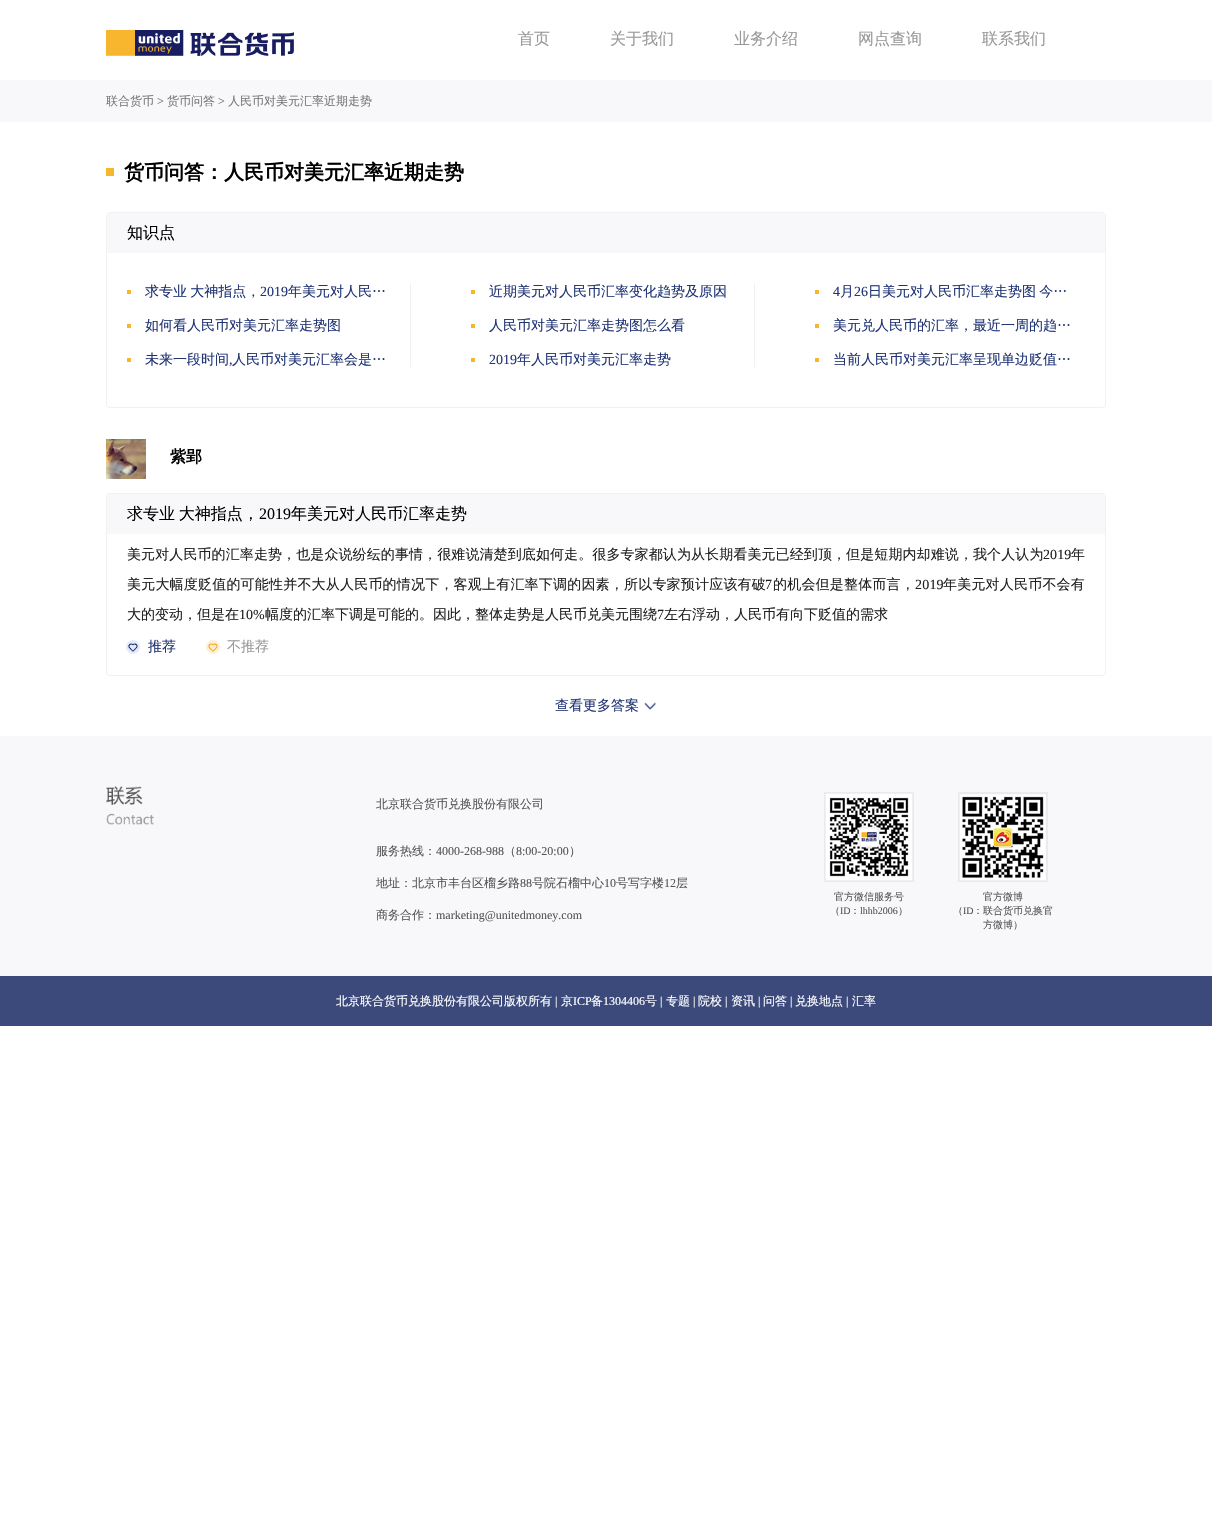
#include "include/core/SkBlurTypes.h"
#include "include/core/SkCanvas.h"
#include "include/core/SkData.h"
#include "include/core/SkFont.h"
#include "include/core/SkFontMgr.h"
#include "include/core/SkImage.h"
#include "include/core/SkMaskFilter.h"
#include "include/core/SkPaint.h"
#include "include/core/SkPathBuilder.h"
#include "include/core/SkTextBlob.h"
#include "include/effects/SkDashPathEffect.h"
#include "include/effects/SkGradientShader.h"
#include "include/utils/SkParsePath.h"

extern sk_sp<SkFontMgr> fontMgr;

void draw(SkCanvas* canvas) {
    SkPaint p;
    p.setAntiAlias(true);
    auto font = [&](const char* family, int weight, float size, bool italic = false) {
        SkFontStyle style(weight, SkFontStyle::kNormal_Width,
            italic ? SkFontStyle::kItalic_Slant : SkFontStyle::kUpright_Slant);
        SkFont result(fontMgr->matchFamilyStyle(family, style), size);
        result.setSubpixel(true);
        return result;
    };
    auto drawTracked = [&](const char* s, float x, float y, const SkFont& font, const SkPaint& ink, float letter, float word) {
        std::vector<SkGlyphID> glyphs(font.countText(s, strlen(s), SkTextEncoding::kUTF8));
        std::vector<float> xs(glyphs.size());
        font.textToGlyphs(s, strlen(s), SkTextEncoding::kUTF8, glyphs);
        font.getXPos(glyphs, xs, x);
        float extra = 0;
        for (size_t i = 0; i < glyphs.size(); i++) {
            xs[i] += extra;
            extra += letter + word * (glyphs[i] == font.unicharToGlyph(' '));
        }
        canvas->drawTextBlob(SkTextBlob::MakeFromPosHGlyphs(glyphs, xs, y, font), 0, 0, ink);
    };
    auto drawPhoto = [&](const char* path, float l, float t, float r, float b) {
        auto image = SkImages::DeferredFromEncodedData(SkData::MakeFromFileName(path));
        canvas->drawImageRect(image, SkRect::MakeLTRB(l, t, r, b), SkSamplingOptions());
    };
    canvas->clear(0xFFFFFFFF);
    drawPhoto("media/1.png", 106, 30, 294, 56);
    auto font1 = font("WenQuanYi Zen Hei", 500, 16);
    p.setColor(0xFF999999);
    {
        const struct { const char* s; float x, y; } items[] = {
            {"首页", 518, 44},
            {"关于我们", 610, 44},
            {"业务介绍", 734, 44},
            {"网点查询", 858, 44},
            {"联系我们", 982, 44},
        };
        for (auto [s, x, y] : items) {
            canvas->drawString(s, x, y, font1, p);
        }
    }
    p.setColor(0xFFF8F8FA);
    canvas->drawRect(SkRect::MakeLTRB(0, 80, 1212, 122), p);
    auto font2 = font("WenQuanYi Zen Hei", 500, 12);
    p.setColor(0xFF797979);
    canvas->drawString("联合货币", 106, 105, font2, p);
    auto font3 = font("Liberation Serif", 400, 12);
    canvas->drawString(">", 157, 105, font3, p);
    canvas->drawString("货币问答", 167, 105, font2, p);
    canvas->drawString(">", 218, 105, font3, p);
    canvas->drawString("人民币对美元汇率近期走势", 228, 105, font2, p);
    p.setColor(0xFFF7B62D);
    canvas->drawRect(SkRect::MakeLTRB(106, 168, 114, 176), p);
    auto font4 = font("WenQuanYi Zen Hei", 700, 20);
    p.setColor(0xFF000000);
    canvas->drawString("货币问答：人民币对美元汇率近期走势", 124, 179, font4, p);
    p.setStyle(SkPaint::kStroke_Style);
    p.setStrokeWidth(1);
    p.setColor(0xFFF1F1F1);
    canvas->drawRoundRect(SkRect::MakeLTRB(106.5f, 212.5f, 1105.5f, 407.5f), 3.5f, 3.5f, p);
    p.setStyle(SkPaint::kFill_Style);
    p.setColor(0xFFF8F8FA);
    canvas->drawRect(SkRect::MakeLTRB(107, 213, 1105, 253), p);
    p.setColor(0xFF000000);
    canvas->drawString("知识点", 127, 238, font1, p);
    p.setColor(0xFFF1F1F1);
    canvas->drawRect(SkRect::MakeLTRB(410, 283, 411, 367), p);
    p.setColor(0xFFF7B62D);
    canvas->drawRect(SkRect::MakeLTRB(127, 290, 131, 294), p);
    auto font5 = font("WenQuanYi Zen Hei", 500, 14);
    p.setColor(0xFF213575);
    drawTracked("求专业 大神指点，", 145, 296, font5, p, 0, -1);
    auto font6 = font("Liberation Serif", 400, 14);
    canvas->drawString("2019", 260, 296, font6, p);
    canvas->drawString("年美元对人民…", 288, 296, font5, p);
    p.setColor(0xFFF7B62D);
    canvas->drawRect(SkRect::MakeLTRB(127, 324, 131, 328), p);
    p.setColor(0xFF213575);
    canvas->drawString("如何看人民币对美元汇率走势图", 145, 330, font5, p);
    p.setColor(0xFFF7B62D);
    canvas->drawRect(SkRect::MakeLTRB(127, 358, 131, 362), p);
    p.setColor(0xFF213575);
    canvas->drawString("未来一段时间", 145, 364, font5, p);
    canvas->drawString(",", 229, 364, font6, p);
    canvas->drawString("人民币对美元汇率会是…", 232, 364, font5, p);
    p.setColor(0xFFF1F1F1);
    canvas->drawRect(SkRect::MakeLTRB(754, 283, 755, 367), p);
    p.setColor(0xFFF7B62D);
    canvas->drawRect(SkRect::MakeLTRB(471, 290, 475, 294), p);
    p.setColor(0xFF213575);
    canvas->drawString("近期美元对人民币汇率变化趋势及原因", 489, 296, font5, p);
    p.setColor(0xFFF7B62D);
    canvas->drawRect(SkRect::MakeLTRB(471, 324, 475, 328), p);
    p.setColor(0xFF213575);
    canvas->drawString("人民币对美元汇率走势图怎么看", 489, 330, font5, p);
    p.setColor(0xFFF7B62D);
    canvas->drawRect(SkRect::MakeLTRB(471, 358, 475, 362), p);
    p.setColor(0xFF213575);
    canvas->drawString("2019", 489, 364, font6, p);
    canvas->drawString("年人民币对美元汇率走势", 517, 364, font5, p);
    p.setColor(0xFFF7B62D);
    canvas->drawRect(SkRect::MakeLTRB(815, 290, 819, 294), p);
    p.setColor(0xFF213575);
    canvas->drawString("4", 833, 296, font6, p);
    canvas->drawString("月", 840, 296, font5, p);
    canvas->drawString("26", 854, 296, font6, p);
    drawTracked("日美元对人民币汇率走势图 今…", 868, 296, font5, p, 0, -1);
    p.setColor(0xFFF7B62D);
    canvas->drawRect(SkRect::MakeLTRB(815, 324, 819, 328), p);
    p.setColor(0xFF213575);
    canvas->drawString("美元兑人民币的汇率，最近一周的趋…", 833, 330, font5, p);
    p.setColor(0xFFF7B62D);
    canvas->drawRect(SkRect::MakeLTRB(815, 358, 819, 362), p);
    p.setColor(0xFF213575);
    canvas->drawString("当前人民币对美元汇率呈现单边贬值…", 833, 364, font5, p);
    drawPhoto("media/2.png", 106, 439, 146, 479);
    auto font7 = font("WenQuanYi Zen Hei", 700, 16);
    p.setColor(0xFF000000);
    canvas->drawString("紫郢", 170, 462, font7, p);
    p.setStyle(SkPaint::kStroke_Style);
    p.setColor(0xFFF1F1F1);
    canvas->drawRoundRect(SkRect::MakeLTRB(106.5f, 493.5f, 1105.5f, 675.5f), 3.5f, 3.5f, p);
    p.setStyle(SkPaint::kFill_Style);
    p.setColor(0xFFF8F8FA);
    canvas->drawRect(SkRect::MakeLTRB(107, 494, 1105, 534), p);
    p.setColor(0xFF000000);
    drawTracked("求专业 大神指点，", 127, 519, font1, p, 0, -1);
    auto font8 = font("Liberation Serif", 400, 16);
    canvas->drawString("2019", 259, 519, font8, p);
    canvas->drawString("年美元对人民币汇率走势", 291, 519, font1, p);
    p.setColor(0xFF212121);
    drawTracked("美元对人民币的汇率走势，也是众说纷纭的事情，很难说清楚到底如何走。很多专家都认为从长期看美元已经到顶，但是短期内却难说，我个人认为", 127, 559, font5, p, 0.1f, 0);
    drawTracked("2019", 1043, 559, font6, p, 0.1f, 0);
    drawTracked("年", 1071, 559, font5, p, 0.1f, 0);
    drawTracked("美元大幅度贬值的可能性并不大从人民币的情况下，客观上有汇率下调的因素，所以专家预计应该有破", 127, 589, font5, p, 0.2f, 0);
    drawTracked("7", 765, 589, font6, p, 0.2f, 0);
    drawTracked("的机会但是整体而言，", 773, 589, font5, p, 0.2f, 0);
    drawTracked("2019", 915, 589, font6, p, 0.2f, 0);
    drawTracked("年美元对人民币不会有", 943, 589, font5, p, 0.2f, 0);
    canvas->drawString("大的变动，但是在", 127, 619, font5, p);
    canvas->drawString("10%", 239, 619, font6, p);
    canvas->drawString("幅度的汇率下调是可能的。因此，整体走势是人民币兑美元围绕", 265, 619, font5, p);
    canvas->drawString("7", 657, 619, font6, p);
    canvas->drawString("左右浮动，人民币有向下贬值的需求", 664, 619, font5, p);
    drawPhoto("media/3.png", 126, 640, 140, 654);
    p.setColor(0xFF213575);
    canvas->drawString("推荐", 148, 651, font5, p);
    drawPhoto("media/4.png", 206, 640, 220, 654);
    p.setColor(0xFF999999);
    canvas->drawString("不推荐", 227, 651, font5, p);
    p.setColor(0xFF213575);
    canvas->drawString("查看更多答案", 555, 710, font5, p);
    drawPhoto("media/5.png", 644, 702, 657, 710);
    p.setColor(0xFFF8F8FA);
    canvas->drawRect(SkRect::MakeLTRB(0, 736, 1212, 976), p);
    drawPhoto("media/6.png", 106, 786, 154, 825);
    p.setColor(0xFF555555);
    canvas->drawString("北京联合货币兑换股份有限公司", 376, 808, font2, p);
    canvas->drawString("服务热线：", 376, 855, font2, p);
    canvas->drawString("4000-268-988", 436, 855, font3, p);
    canvas->drawString("（", 504, 855, font2, p);
    canvas->drawString("8:00-20:00", 516, 855, font3, p);
    canvas->drawString("）", 569, 855, font2, p);
    canvas->drawString("地址：北京市丰台区榴乡路", 376, 887, font2, p);
    canvas->drawString("88", 520, 887, font3, p);
    canvas->drawString("号院石榴中心", 532, 887, font2, p);
    canvas->drawString("10", 604, 887, font3, p);
    canvas->drawString("号写字楼", 616, 887, font2, p);
    canvas->drawString("12", 664, 887, font3, p);
    canvas->drawString("层", 676, 887, font2, p);
    canvas->drawString("商务合作：", 376, 919, font2, p);
    canvas->drawString("marketing@unitedmoney.com", 436, 919, font3, p);
    drawPhoto("media/7.png", 824, 792, 914, 882);
    auto font9 = font("WenQuanYi Zen Hei", 500, 10);
    canvas->drawString("官方微信服务号", 834, 900, font9, p);
    canvas->drawString("（", 830, 914, font9, p);
    auto font10 = font("Liberation Serif", 400, 10);
    canvas->drawString("ID", 840, 914, font10, p);
    canvas->drawString("：", 850, 914, font9, p);
    canvas->drawString("lhhb2006", 860, 914, font10, p);
    canvas->drawString("）", 898, 914, font9, p);
    drawPhoto("media/8.png", 958, 792, 1048, 882);
    canvas->drawString("官方微博", 983, 900, font9, p);
    canvas->drawString("（", 953, 914, font9, p);
    canvas->drawString("ID", 963, 914, font10, p);
    canvas->drawString("：联合货币兑换官", 973, 914, font9, p);
    canvas->drawString("方微博）", 983, 928, font9, p);
    p.setColor(0xFF3B4A7B);
    canvas->drawRect(SkRect::MakeLTRB(0, 976, 1212, 1026), p);
    p.setColor(0xFFFFFFFF);
    canvas->drawString("北京联合货币兑换股份有限公司版权所有", 336, 1005, font2, p);
    canvas->drawString("|", 555, 1005, font3, p);
    canvas->drawString("京", 561, 1005, font2, p);
    canvas->drawString("ICP", 573, 1005, font3, p);
    canvas->drawString("备", 591, 1005, font2, p);
    canvas->drawString("1304406", 603, 1005, font3, p);
    canvas->drawString("号", 645, 1005, font2, p);
    canvas->drawString("|", 660, 1005, font3, p);
    canvas->drawString("专题", 666, 1005, font2, p);
    canvas->drawString("|", 693, 1005, font3, p);
    canvas->drawString("院校", 698, 1005, font2, p);
    canvas->drawString("|", 725, 1005, font3, p);
    canvas->drawString("资讯", 731, 1005, font2, p);
    canvas->drawString("|", 758, 1005, font3, p);
    canvas->drawString("问答", 763, 1005, font2, p);
    canvas->drawString("|", 790, 1005, font3, p);
    canvas->drawString("兑换地点", 795, 1005, font2, p);
    canvas->drawString("|", 846, 1005, font3, p);
    canvas->drawString("汇率", 852, 1005, font2, p);
}
